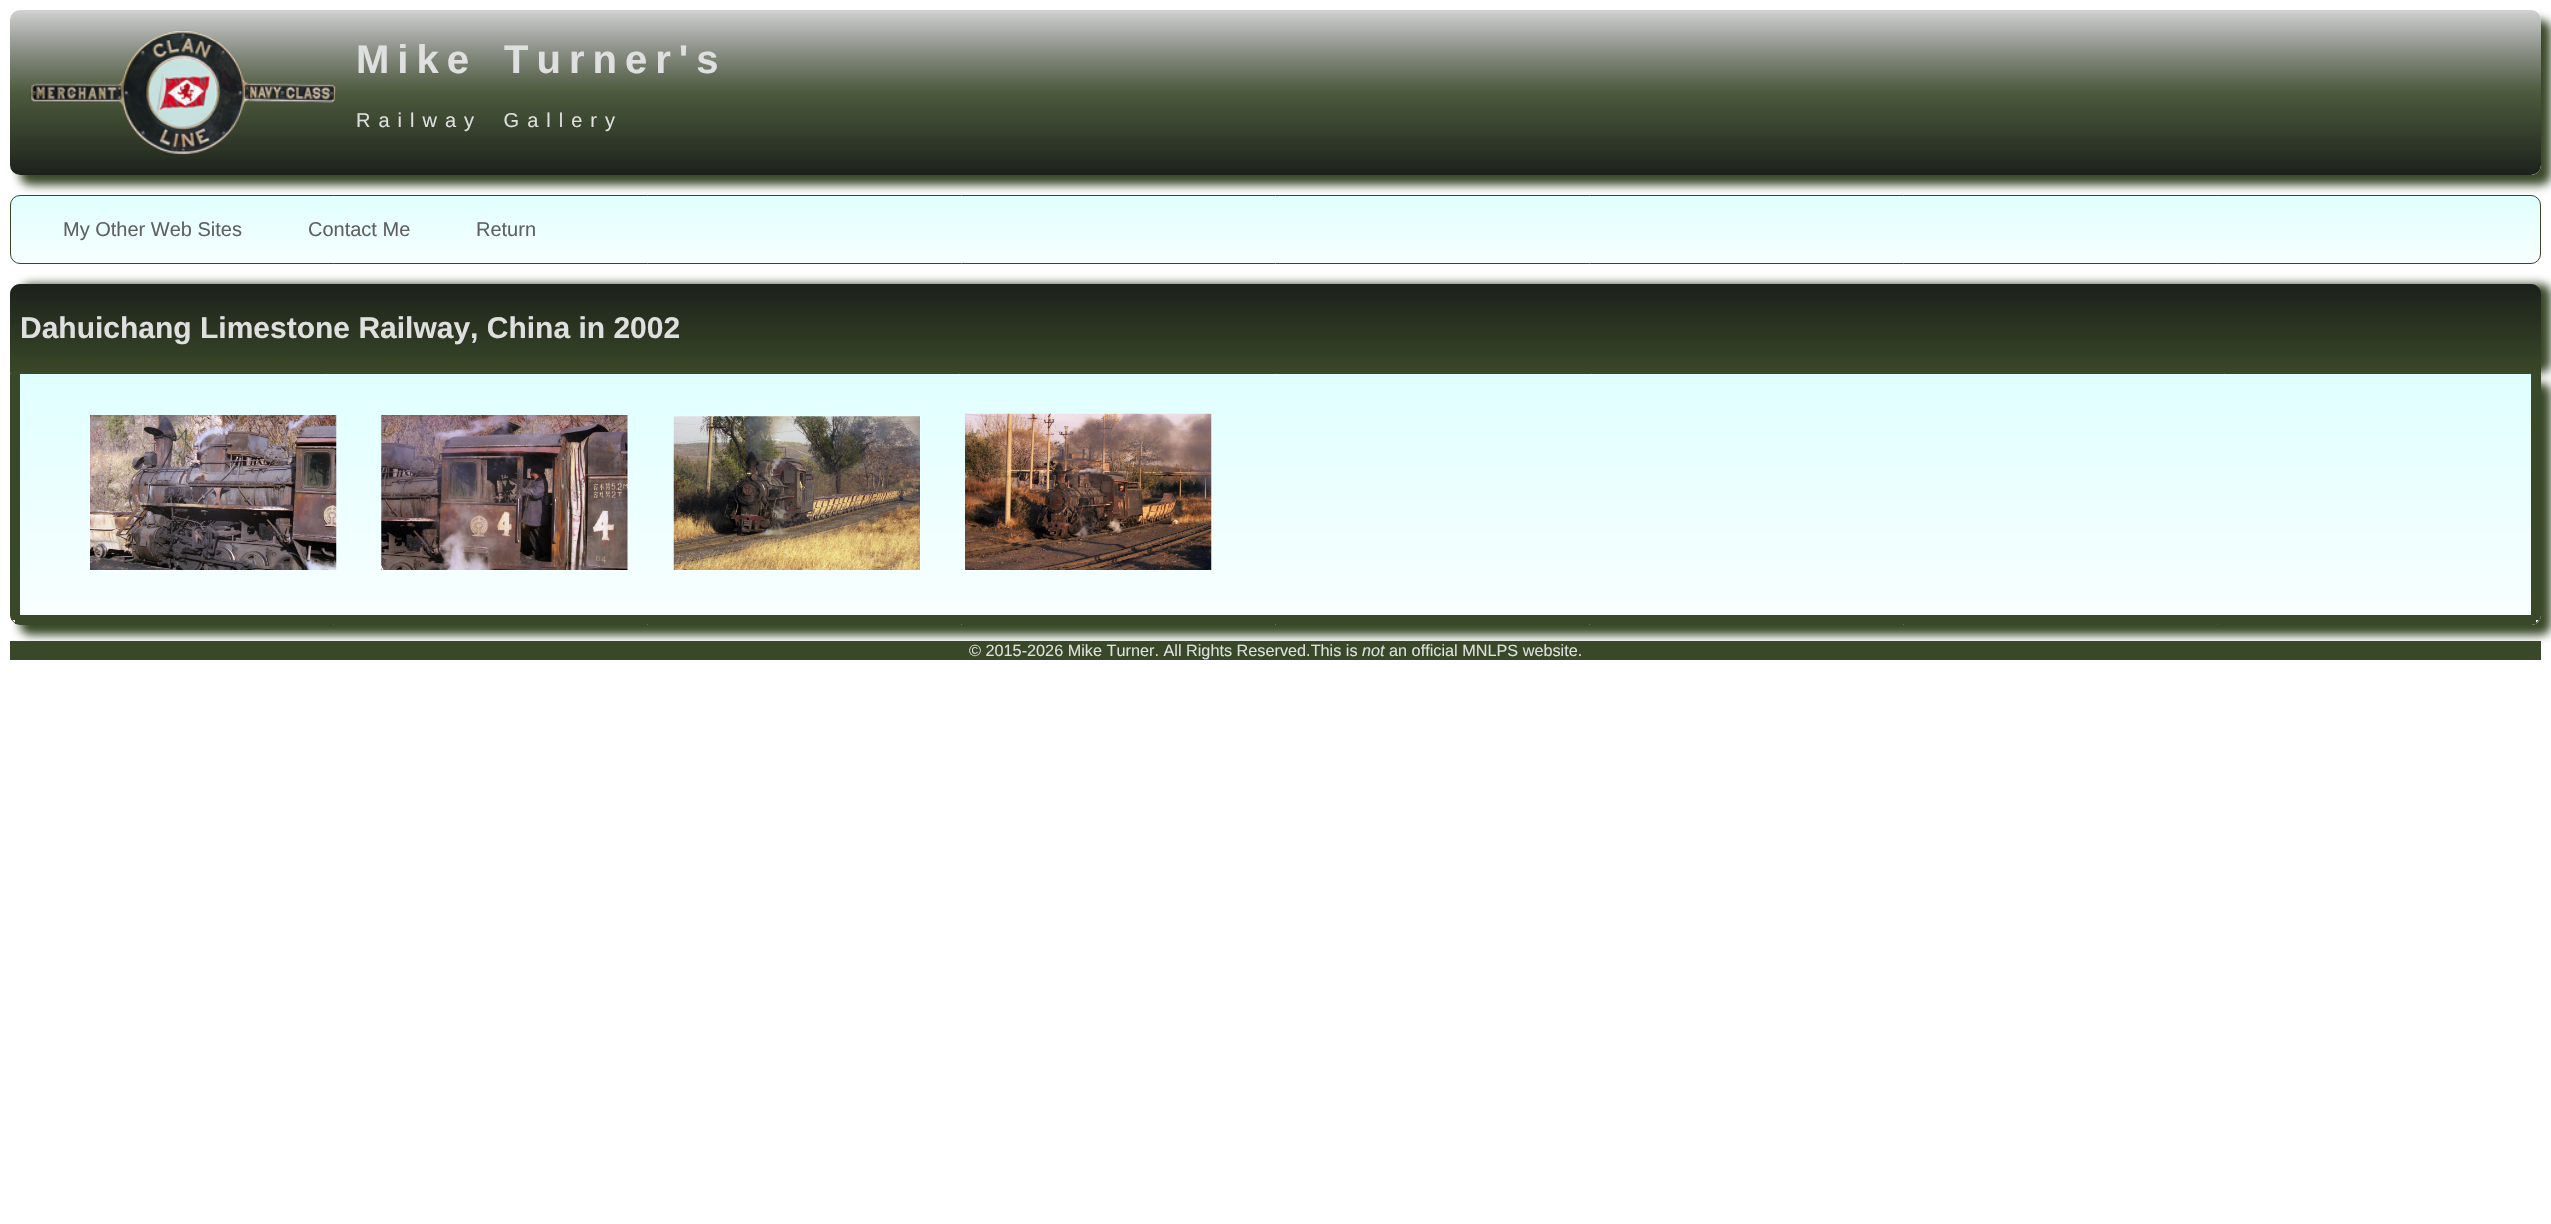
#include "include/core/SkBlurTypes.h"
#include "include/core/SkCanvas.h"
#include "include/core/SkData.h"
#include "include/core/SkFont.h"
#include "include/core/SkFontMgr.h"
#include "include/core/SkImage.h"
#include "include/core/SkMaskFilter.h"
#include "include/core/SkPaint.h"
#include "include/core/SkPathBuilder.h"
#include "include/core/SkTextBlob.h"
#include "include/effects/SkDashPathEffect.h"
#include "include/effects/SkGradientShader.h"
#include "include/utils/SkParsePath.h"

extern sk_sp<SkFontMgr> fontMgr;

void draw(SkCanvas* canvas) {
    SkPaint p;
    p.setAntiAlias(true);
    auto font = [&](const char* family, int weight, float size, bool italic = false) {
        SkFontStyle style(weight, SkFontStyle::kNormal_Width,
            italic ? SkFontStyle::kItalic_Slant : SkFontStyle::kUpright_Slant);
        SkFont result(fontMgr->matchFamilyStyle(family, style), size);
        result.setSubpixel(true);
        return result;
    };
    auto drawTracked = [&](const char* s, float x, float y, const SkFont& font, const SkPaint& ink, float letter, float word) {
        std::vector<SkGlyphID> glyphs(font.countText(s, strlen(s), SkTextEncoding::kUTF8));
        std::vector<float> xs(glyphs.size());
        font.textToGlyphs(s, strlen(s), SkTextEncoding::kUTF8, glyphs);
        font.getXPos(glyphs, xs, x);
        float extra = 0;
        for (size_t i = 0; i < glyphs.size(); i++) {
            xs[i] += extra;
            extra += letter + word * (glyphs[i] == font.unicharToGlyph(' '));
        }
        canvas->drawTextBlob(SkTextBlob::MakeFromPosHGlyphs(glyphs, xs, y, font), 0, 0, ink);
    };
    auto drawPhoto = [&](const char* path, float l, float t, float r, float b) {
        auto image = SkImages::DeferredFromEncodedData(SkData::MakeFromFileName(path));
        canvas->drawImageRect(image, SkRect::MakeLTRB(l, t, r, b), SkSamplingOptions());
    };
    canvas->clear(0xFFFFFFFF);
    canvas->save();
    canvas->clipPath(SkPathBuilder(SkPathFillType::kEvenOdd).moveTo(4, 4).lineTo(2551, 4).lineTo(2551, 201).lineTo(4, 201).close().moveTo(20, 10).lineTo(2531, 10).cubicTo(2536.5f, 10, 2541, 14.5f, 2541, 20).lineTo(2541, 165).cubicTo(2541, 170.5f, 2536.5f, 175, 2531, 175).lineTo(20, 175).cubicTo(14.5f, 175, 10, 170.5f, 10, 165).lineTo(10, 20).cubicTo(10, 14.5f, 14.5f, 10, 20, 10).close().detach(), true);
    p.setColor(0xFF394828);
    p.setMaskFilter(SkMaskFilter::MakeBlur(kNormal_SkBlurStyle, 5));
    canvas->drawRoundRect(SkRect::MakeLTRB(20, 20, 2551, 185), 10, 10, p);
    p.setMaskFilter(nullptr);
    canvas->restore();
    {
        const SkColor colors[] = {0x331C211B, 0xE6394828, 0xFF1C211B};
        const float stops[] = {0, 0.5f, 1};
        const SkPoint ends[] = {{1276, 10}, {1276, 175}};
        p.setShader(SkGradientShader::MakeLinear(ends, colors, stops, 3, SkTileMode::kClamp));
        p.setAlpha(255);
    }
    canvas->drawRoundRect(SkRect::MakeLTRB(10, 10, 2541, 175), 10, 10, p);
    drawPhoto("media/1.png", 30, 30, 336, 155);
    auto font1 = font("Liberation Sans", 700, 40);
    p.setShader(nullptr);
    p.setColor(0xFFDFDFDF);
    drawTracked("Mike Turner's", 356, 73, font1, p, 8, 8);
    auto font2 = font("Liberation Sans", 400, 20);
    drawTracked("Railway Gallery", 356, 127, font2, p, 8, 8);
    canvas->save();
    canvas->clipPath(SkPathBuilder().moveTo(20, 195).lineTo(2531, 195).cubicTo(2536.5f, 195, 2541, 199.5f, 2541, 205).lineTo(2541, 254).cubicTo(2541, 259.5f, 2536.5f, 264, 2531, 264).lineTo(20, 264).cubicTo(14.5f, 264, 10, 259.5f, 10, 254).lineTo(10, 205).cubicTo(10, 199.5f, 14.5f, 195, 20, 195).close().detach(), true);
    {
        const SkColor colors[] = {0xFFE0FFFF, 0xFFF8FFFF};
        const float stops[] = {0, 1};
        const SkPoint ends[] = {{1276, 196}, {1276, 263}};
        p.setShader(SkGradientShader::MakeLinear(ends, colors, stops, 2, SkTileMode::kClamp));
        p.setAlpha(255);
    }
    canvas->drawRect(SkRect::MakeLTRB(10, 196, 2541, 263), p);
    canvas->restore();
    p.setStyle(SkPaint::kStroke_Style);
    p.setStrokeWidth(1);
    p.setShader(nullptr);
    p.setColor(0xFF394828);
    canvas->drawRoundRect(SkRect::MakeLTRB(10.5f, 195.5f, 2540.5f, 263.5f), 9.5f, 9.5f, p);
    p.setStyle(SkPaint::kFill_Style);
    p.setColor(0xFF606060);
    {
        const struct { const char* s; float x, y; } items[] = {
            {"My Other Web Sites", 63, 236},
            {"Contact Me", 308, 236},
            {"Return", 476, 236},
        };
        for (auto [s, x, y] : items) {
            canvas->drawString(s, x, y, font2, p);
        }
    }
    p.setColor(0xFF394828);
    p.setMaskFilter(SkMaskFilter::MakeBlur(kNormal_SkBlurStyle, 5));
    canvas->drawRoundRect(SkRect::MakeLTRB(20, 284, 2551, 373), 10, 10, p);
    p.setMaskFilter(nullptr);
    {
        const SkColor colors[] = {0xFF1C211B, 0xFF394828};
        const float stops[] = {0, 1};
        const SkPoint ends[] = {{1276, 284}, {1276, 373}};
        p.setShader(SkGradientShader::MakeLinear(ends, colors, stops, 2, SkTileMode::kClamp));
        p.setAlpha(255);
    }
    canvas->drawPath(SkPathBuilder().moveTo(20, 284).lineTo(2531, 284).cubicTo(2536.5f, 284, 2541, 288.5f, 2541, 294).lineTo(2541, 373).lineTo(10, 373).lineTo(10, 294).cubicTo(10, 288.5f, 14.5f, 284, 20, 284).close().detach(), p);
    auto font3 = font("Liberation Sans", 700, 30);
    p.setShader(nullptr);
    p.setColor(0xFFDFDFDF);
    canvas->drawString("Dahuichang Limestone Railway, China in 2002", 20, 338, font3, p);
    canvas->save();
    canvas->clipPath(SkPathBuilder(SkPathFillType::kEvenOdd).moveTo(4, 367).lineTo(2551, 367).lineTo(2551, 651).lineTo(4, 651).close().moveTo(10, 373).lineTo(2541, 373).lineTo(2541, 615).cubicTo(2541, 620.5f, 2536.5f, 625, 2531, 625).lineTo(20, 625).cubicTo(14.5f, 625, 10, 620.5f, 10, 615).close().detach(), true);
    p.setColor(0xFF394828);
    p.setMaskFilter(SkMaskFilter::MakeBlur(kNormal_SkBlurStyle, 5));
    canvas->drawRoundRect(SkRect::MakeLTRB(20, 383, 2551, 635), 10, 10, p);
    p.setMaskFilter(nullptr);
    canvas->restore();
    {
        const SkColor colors[] = {0xFFE0FFFF, 0xFFF8FFFF};
        const float stops[] = {0, 1};
        const SkPoint ends[] = {{1276, 374}, {1276, 615}};
        p.setShader(SkGradientShader::MakeLinear(ends, colors, stops, 2, SkTileMode::kClamp));
        p.setAlpha(255);
    }
    canvas->drawRect(SkRect::MakeLTRB(20, 374, 2531, 615), p);
    p.setStyle(SkPaint::kStroke_Style);
    p.setShader(nullptr);
    p.setColor(0xFF394828);
    canvas->drawPath(SkPathBuilder().moveTo(10.5f, 373.5f).lineTo(2540.5f, 373.5f).lineTo(2540.5f, 615).cubicTo(2540.5f, 620, 2536, 624.5f, 2531, 624.5f).lineTo(20, 624.5f).cubicTo(15, 624.5f, 10.5f, 620, 10.5f, 615).close().detach(), p);
    p.setStyle(SkPaint::kFill_Style);
    {
        const struct { float l, t, r, b; SkColor color; } items[] = {
            {2531, 374, 2540, 620, 0xFF394828},
            {15, 615, 2536, 624, 0xFF394828},
            {11, 374, 20, 620, 0xFF394828},
        };
        for (auto [l, t, r, b, color] : items) {
            p.setColor(color);
            canvas->drawRect(SkRect::MakeLTRB(l, t, r, b), p);
        }
    }
    drawPhoto("media/2.png", 90, 415, 337, 570);
    drawPhoto("media/3.png", 381, 415, 628, 570);
    drawPhoto("media/4.png", 673, 416, 920, 570);
    drawPhoto("media/5.png", 965, 413, 1212, 570);
    canvas->drawRect(SkRect::MakeLTRB(10, 641, 2541, 660), p);
    auto font4 = font("Liberation Sans", 400, 16.25f);
    p.setColor(0xFFDFDFDF);
    canvas->drawString("© 2015-2026 Mike Turner. All Rights Reserved.This is", 969, 656, font4, p);
    auto font5 = font("Liberation Sans", 400, 16.25f, true);
    canvas->drawString("not", 1362, 656, font5, p);
    canvas->drawString("an official MNLPS website.", 1389, 656, font4, p);
}
